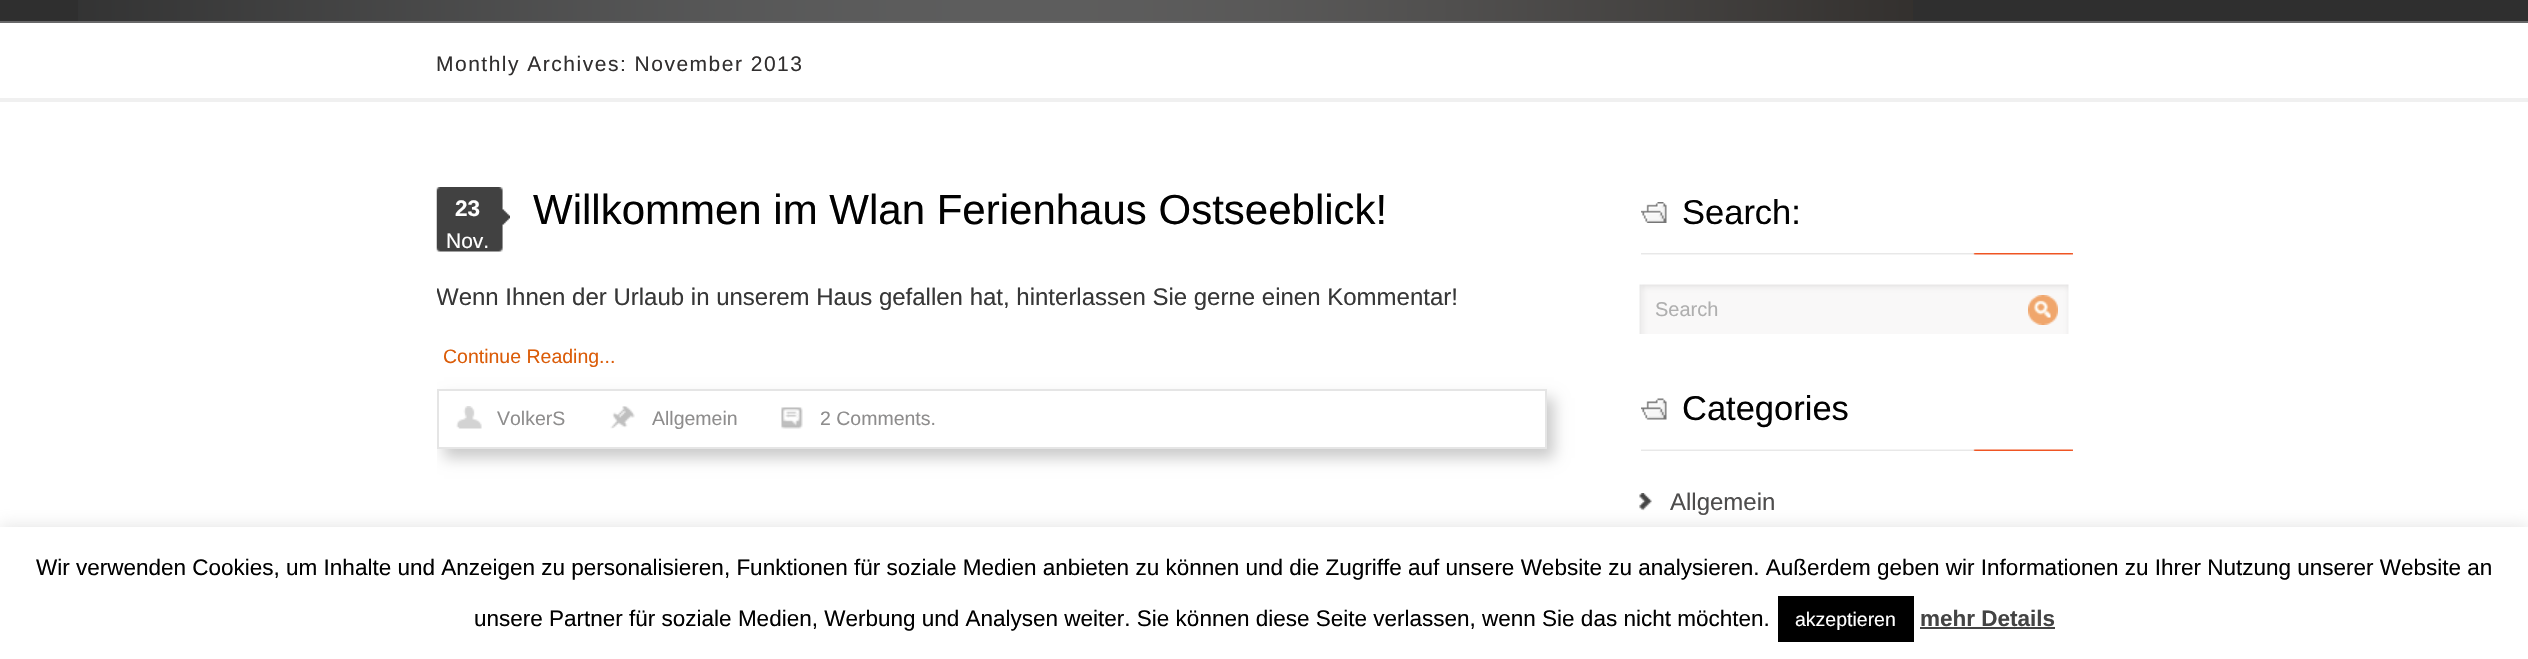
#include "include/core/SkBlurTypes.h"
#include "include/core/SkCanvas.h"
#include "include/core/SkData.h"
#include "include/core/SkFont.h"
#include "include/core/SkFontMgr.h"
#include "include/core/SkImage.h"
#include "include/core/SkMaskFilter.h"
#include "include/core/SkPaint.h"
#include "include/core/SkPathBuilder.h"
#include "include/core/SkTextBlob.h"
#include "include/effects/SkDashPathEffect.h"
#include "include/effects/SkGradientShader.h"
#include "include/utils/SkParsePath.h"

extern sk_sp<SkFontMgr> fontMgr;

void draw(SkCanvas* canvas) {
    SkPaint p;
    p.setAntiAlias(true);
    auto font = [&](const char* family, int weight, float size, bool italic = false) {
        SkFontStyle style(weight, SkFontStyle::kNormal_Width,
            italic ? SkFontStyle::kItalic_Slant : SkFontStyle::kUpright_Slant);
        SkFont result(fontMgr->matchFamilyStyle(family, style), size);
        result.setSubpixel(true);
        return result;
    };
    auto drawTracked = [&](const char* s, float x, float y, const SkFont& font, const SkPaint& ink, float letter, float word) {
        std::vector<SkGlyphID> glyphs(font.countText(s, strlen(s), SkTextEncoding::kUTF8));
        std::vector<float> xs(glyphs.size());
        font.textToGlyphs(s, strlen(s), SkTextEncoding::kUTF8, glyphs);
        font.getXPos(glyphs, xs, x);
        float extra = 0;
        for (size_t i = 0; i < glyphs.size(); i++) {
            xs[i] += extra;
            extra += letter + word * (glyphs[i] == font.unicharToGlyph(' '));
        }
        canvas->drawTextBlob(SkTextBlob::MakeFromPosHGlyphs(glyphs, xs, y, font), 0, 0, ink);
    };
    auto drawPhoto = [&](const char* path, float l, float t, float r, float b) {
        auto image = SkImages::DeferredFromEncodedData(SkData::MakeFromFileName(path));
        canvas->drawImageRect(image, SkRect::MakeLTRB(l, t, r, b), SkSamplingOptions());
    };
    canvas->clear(0xFFFFFFFF);
    p.setColor(0xFF2F2F2F);
    canvas->drawRect(SkRect::MakeLTRB(0, 0, 2528, 21), p);
    drawPhoto("media/1.png", 78, 0, 1913, 21);
    p.setColor(0xFF686869);
    canvas->drawRect(SkRect::MakeLTRB(0, 21, 2528, 23), p);
    p.setColor(0xFFF0F0F0);
    canvas->drawRect(SkRect::MakeLTRB(0, 98, 2528, 102), p);
    auto font1 = font("Liberation Sans", 400, 21);
    p.setColor(0xFF312F2F);
    drawTracked("Monthly Archives: November 2013", 436, 71, font1, p, 1.5f, 0);
    drawPhoto("media/2.png", 436, 187, 510, 252);
    auto font2 = font("Liberation Sans", 700, 22.5f);
    p.setColor(0xFFFFFFFF);
    canvas->drawString("23", 455, 216, font2, p);
    canvas->drawString("Nov.", 446, 248, font1, p);
    auto font3 = font("Liberation Sans", 400, 42);
    p.setColor(0xFF010101);
    canvas->drawString("Willkommen im Wlan Ferienhaus Ostseeblick!", 533, 224, font3, p);
    canvas->save();
    canvas->clipRect(SkRect::MakeLTRB(437, 276, 1547, 389));
    auto font4 = font("Liberation Sans", 400, 24);
    p.setColor(0xFF373737);
    canvas->drawString("Wenn Ihnen der Urlaub in unserem Haus gefallen hat, hinterlassen Sie gerne einen Kommentar!", 436, 305, font4, p);
    canvas->restore();
    auto font5 = font("Liberation Sans", 400, 19.5f);
    p.setColor(0xFFDB5C08);
    canvas->drawString("Continue Reading...", 443, 363, font5, p);
    canvas->save();
    canvas->clipRect(SkRect::MakeLTRB(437, 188, 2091, 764));
    canvas->clipPath(SkPathBuilder(SkPathFillType::kEvenOdd).moveTo(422, 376).lineTo(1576, 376).lineTo(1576, 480).lineTo(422, 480).close().moveTo(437, 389).lineTo(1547, 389).lineTo(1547, 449).lineTo(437, 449).close().detach(), true);
    p.setColor(0xFFCACACA);
    p.setMaskFilter(SkMaskFilter::MakeBlur(kNormal_SkBlurStyle, 7));
    canvas->drawRect(SkRect::MakeLTRB(444, 398, 1554, 458), p);
    p.setMaskFilter(nullptr);
    canvas->restore();
    p.setStyle(SkPaint::kStroke_Style);
    p.setStrokeWidth(2);
    p.setColor(0xFFE5E5E5);
    canvas->drawRect(SkRect::MakeLTRB(438, 390, 1546, 448), p);
    drawPhoto("media/3.png", 456, 406, 482, 429);
    p.setStyle(SkPaint::kFill_Style);
    p.setColor(0xFF8E8D8D);
    canvas->drawString("VolkerS", 497, 425, font5, p);
    drawPhoto("media/4.png", 610, 406, 635, 429);
    canvas->drawString("Allgemein", 652, 425, font5, p);
    drawPhoto("media/5.png", 781, 407, 803, 429);
    canvas->drawString("2 Comments.", 820, 425, font5, p);
    drawPhoto("media/6.png", 1641, 202, 2073, 255);
    auto font6 = font("Liberation Sans", 400, 34.5f);
    p.setColor(0xFF010101);
    canvas->drawString("Search:", 1682, 224, font6, p);
    drawPhoto("media/7.png", 1639, 284, 2069, 334);
    auto font7 = font("Liberation Sans", 400, 20);
    p.setColor(0xFFAFAFAF);
    canvas->drawString("Search", 1655, 316, font7, p);
    drawPhoto("media/8.png", 2028, 295, 2058, 325);
    drawPhoto("media/9.png", 1641, 398, 2073, 451);
    p.setColor(0xFF010101);
    canvas->drawString("Categories", 1682, 420, font6, p);
    drawPhoto("media/10.png", 1639, 493, 1652, 511);
    p.setColor(0xFF4D4C4C);
    canvas->drawString("Allgemein", 1670, 510, font4, p);
    p.setColor(0x4DACABAB);
    p.setMaskFilter(SkMaskFilter::MakeBlur(kNormal_SkBlurStyle, 7.5f));
    canvas->drawRect(SkRect::MakeLTRB(0, 525, 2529, 659), p);
    p.setMaskFilter(nullptr);
    p.setColor(0xFFFFFFFF);
    canvas->drawRect(SkRect::MakeLTRB(0, 527, 2528, 659), p);
    auto font8 = font("Liberation Sans", 400, 22.5f);
    p.setColor(0xFF010101);
    canvas->drawString("Wir verwenden Cookies, um Inhalte und Anzeigen zu personalisieren, Funktionen für soziale Medien anbieten zu können und die Zugriffe auf unsere Website zu analysieren. Außerdem geben wir Informationen zu Ihrer Nutzung unserer Website an", 36, 575, font8, p);
    canvas->drawString("unsere Partner für soziale Medien, Werbung und Analysen weiter. Sie können diese Seite verlassen, wenn Sie das nicht möchten.", 474, 626, font8, p);
    p.setColor(0xFF000000);
    canvas->drawRect(SkRect::MakeLTRB(1778, 596, 1914, 642), p);
    p.setColor(0xFFFFFFFF);
    canvas->drawString("akzeptieren", 1795, 626, font5, p);
    p.setColor(0xFF444444);
    canvas->drawString("mehr Details", 1920, 626, font2, p);
    canvas->drawRect(SkRect::MakeLTRB(1920, 627, 2055, 629), p);
}
